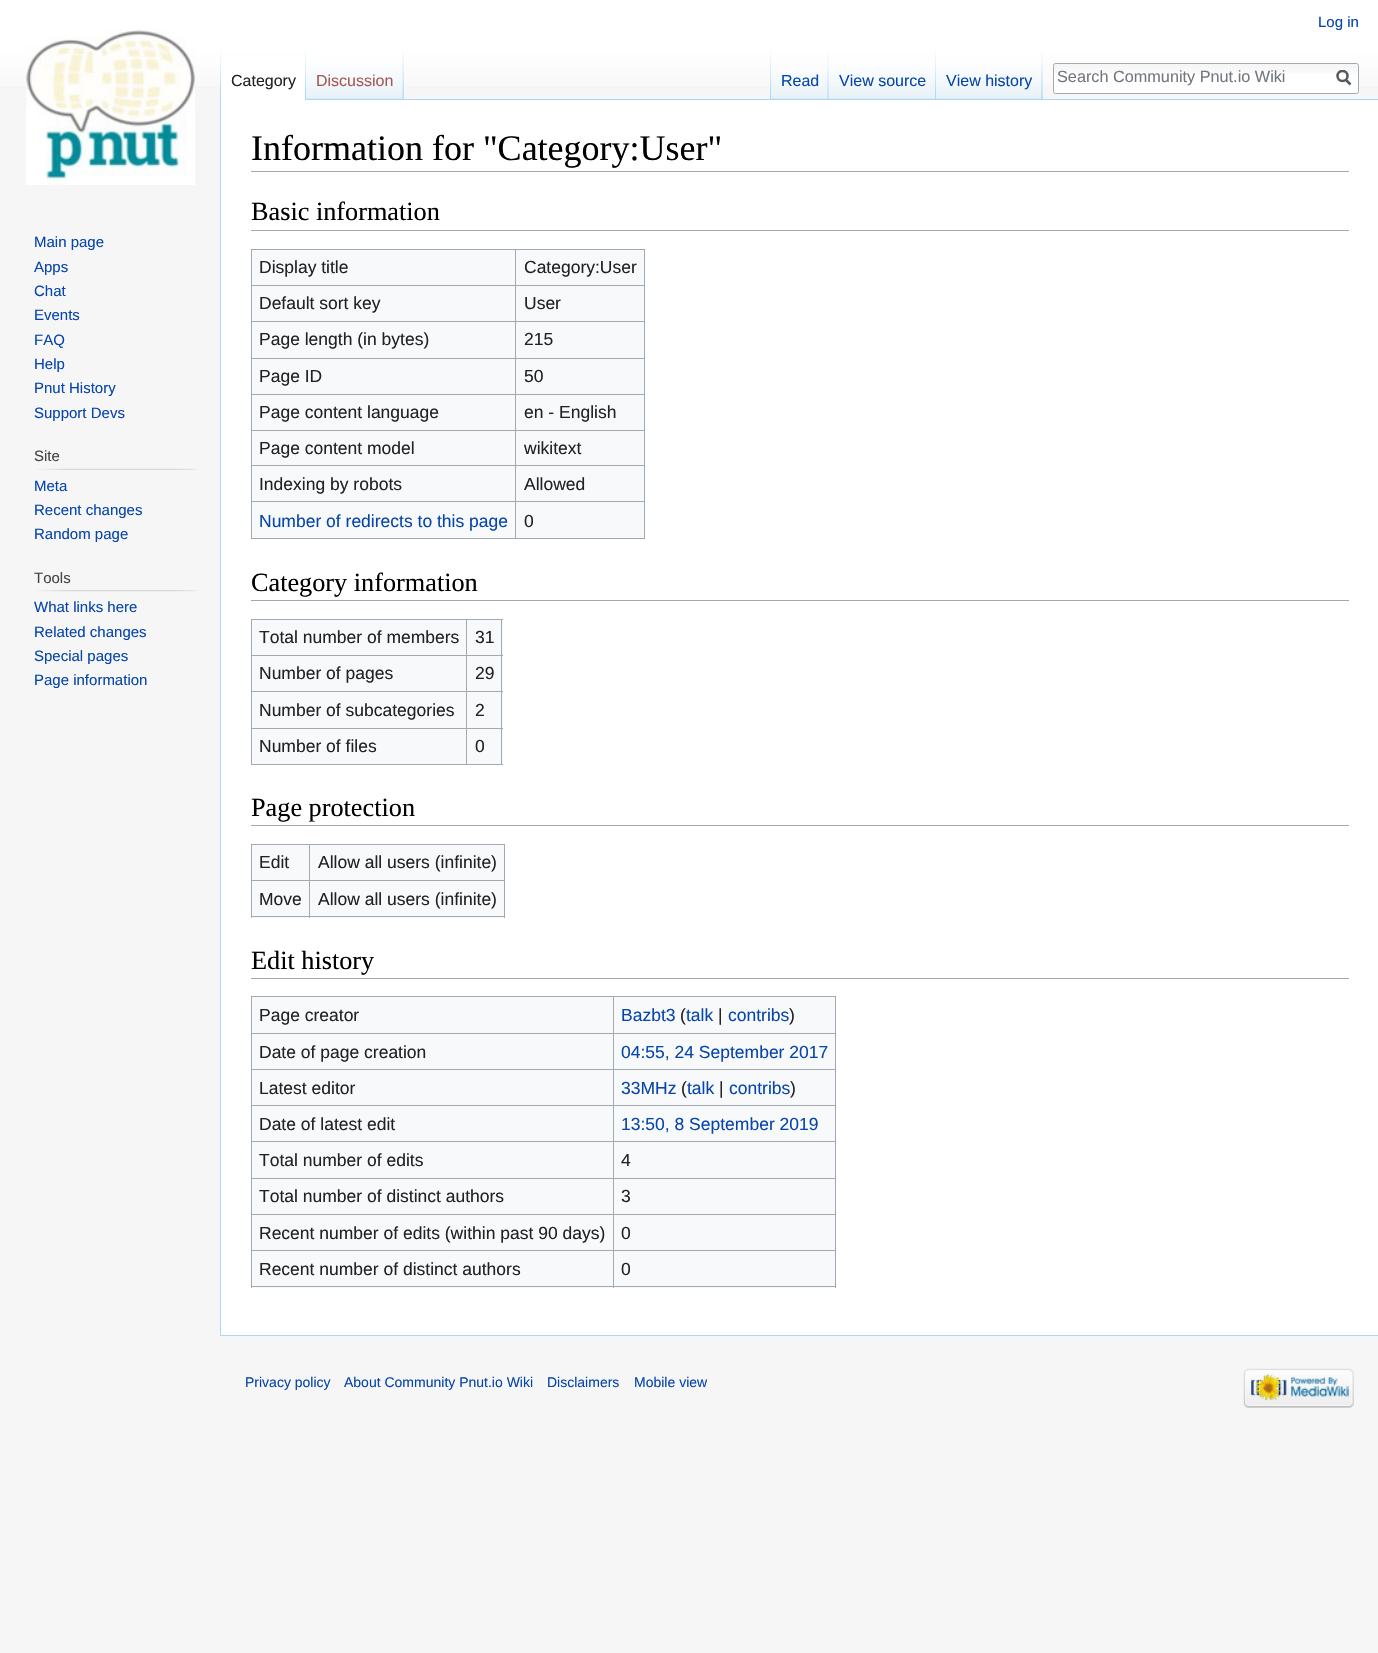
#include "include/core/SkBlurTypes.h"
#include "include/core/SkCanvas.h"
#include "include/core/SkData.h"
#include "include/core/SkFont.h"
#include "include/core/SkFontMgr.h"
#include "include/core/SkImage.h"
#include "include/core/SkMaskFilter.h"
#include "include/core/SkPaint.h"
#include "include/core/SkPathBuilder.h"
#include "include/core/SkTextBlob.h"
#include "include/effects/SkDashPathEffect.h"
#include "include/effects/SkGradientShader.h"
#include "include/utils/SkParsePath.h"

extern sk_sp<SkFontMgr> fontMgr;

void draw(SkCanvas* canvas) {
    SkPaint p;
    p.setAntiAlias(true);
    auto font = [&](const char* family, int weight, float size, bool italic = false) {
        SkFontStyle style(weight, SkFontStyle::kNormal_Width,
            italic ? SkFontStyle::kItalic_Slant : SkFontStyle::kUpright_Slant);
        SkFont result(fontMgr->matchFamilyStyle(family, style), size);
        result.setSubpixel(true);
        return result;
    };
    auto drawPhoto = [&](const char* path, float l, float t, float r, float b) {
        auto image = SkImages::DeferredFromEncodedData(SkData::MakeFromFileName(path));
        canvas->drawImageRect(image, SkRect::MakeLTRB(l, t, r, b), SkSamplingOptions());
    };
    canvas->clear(0xFFF6F6F6);
    {
        const SkColor colors[] = {0xFFFFFFFF, 0xFFF6F6F6};
        const float stops[] = {0.5f, 1};
        const SkPoint ends[] = {{689, 0}, {689, 100}};
        p.setShader(SkGradientShader::MakeLinear(ends, colors, stops, 2, SkTileMode::kClamp));
        p.setAlpha(255);
    }
    canvas->drawRect(SkRect::MakeLTRB(0, 0, 1378, 86), p);
    auto font1 = font("Liberation Sans", 400, 15);
    p.setShader(nullptr);
    p.setColor(0xFF0645AD);
    canvas->drawString("Log in", 1318, 27, font1, p);
    drawPhoto("media/1.png", 220, 50, 222, 99);
    drawPhoto("media/2.png", 403, 52, 404, 99);
    p.setColor(0xFFFFFFFF);
    canvas->drawRect(SkRect::MakeLTRB(221, 58, 307, 100), p);
    drawPhoto("media/3.png", 305, 50, 307, 100);
    auto font2 = font("Liberation Sans", 400, 16);
    p.setColor(0xFF222222);
    canvas->drawString("Category", 231, 86, font2, p);
    p.setColor(0xFFA7D7F9);
    canvas->drawRect(SkRect::MakeLTRB(403, 99, 1378, 100), p);
    drawPhoto("media/4.png", 306, 52, 404, 100);
    drawPhoto("media/5.png", 402, 52, 404, 99);
    p.setColor(0xFFA55858);
    canvas->drawString("Discussion", 316, 86, font2, p);
    drawPhoto("media/1.png", 770, 50, 772, 99);
    drawPhoto("media/6.png", 1042, 52, 1043, 99);
    drawPhoto("media/7.png", 771, 69, 829, 99);
    drawPhoto("media/8.png", 827, 52, 829, 99);
    p.setColor(0xFF0645AD);
    canvas->drawString("Read", 781, 86, font2, p);
    drawPhoto("media/9.png", 828, 61, 937, 99);
    drawPhoto("media/10.png", 935, 50, 937, 99);
    canvas->drawString("View source", 839, 86, font2, p);
    drawPhoto("media/11.png", 936, 52, 1043, 99);
    drawPhoto("media/12.png", 1041, 52, 1043, 99);
    canvas->drawString("View history", 946, 86, font2, p);
    p.setColor(0xFFFFFFFF);
    canvas->drawRoundRect(SkRect::MakeLTRB(1053, 63, 1359, 94), 2.5f, 2.5f, p);
    drawPhoto("media/13.png", 1053, 64, 1359, 74);
    p.setStyle(SkPaint::kStroke_Style);
    p.setStrokeWidth(1);
    p.setColor(0xFFA2A9B1);
    canvas->drawRoundRect(SkRect::MakeLTRB(1053.5f, 63.5f, 1358.5f, 93.5f), 2, 2, p);
    auto font3 = font("Liberation Sans", 400, 16.25f);
    p.setStyle(SkPaint::kFill_Style);
    p.setColor(0xFF72777D);
    canvas->drawString("Search Community Pnut.io Wiki", 1057, 82, font3, p);
    p.setStyle(SkPaint::kStroke_Style);
    p.setStrokeWidth(2.5f);
    p.setColor(0xFF54595D);
    canvas->drawPath(SkPathBuilder().moveTo(1350.5f, 84.5f).lineTo(1345.5f, 79.5f).detach(), p);
    canvas->save();
    canvas->clipRect(SkRect::MakeLTRB(1336, 70, 1351, 86));
    canvas->drawCircle(1342.5f, 76, 5, p);
    canvas->restore();
    drawPhoto("media/14.png", 26, 29, 195, 185);
    p.setStyle(SkPaint::kFill_Style);
    p.setColor(0xFF0645AD);
    {
        const struct { const char* s; float x, y; } items[] = {
            {"Main page", 34, 247},
            {"Apps", 34, 272},
            {"Chat", 34, 296},
            {"Events", 34, 320},
            {"FAQ", 34, 345},
            {"Help", 34, 369},
            {"Pnut History", 34, 393},
            {"Support Devs", 34, 418},
        };
        for (auto [s, x, y] : items) {
            canvas->drawString(s, x, y, font1, p);
        }
    }
    p.setColor(0xFF444444);
    canvas->drawString("Site", 34, 461, font1, p);
    drawPhoto("media/15.png", 37, 468, 198, 470);
    p.setColor(0xFF0645AD);
    {
        const struct { const char* s; float x, y; } items[] = {
            {"Meta", 34, 491},
            {"Recent changes", 34, 515},
            {"Random page", 34, 539},
        };
        for (auto [s, x, y] : items) {
            canvas->drawString(s, x, y, font1, p);
        }
    }
    p.setColor(0xFF444444);
    canvas->drawString("Tools", 34, 583, font1, p);
    drawPhoto("media/16.png", 37, 590, 198, 592);
    p.setColor(0xFF0645AD);
    {
        const struct { const char* s; float x, y; } items[] = {
            {"What links here", 34, 612},
            {"Related changes", 34, 637},
            {"Special pages", 34, 661},
            {"Page information", 34, 685},
        };
        for (auto [s, x, y] : items) {
            canvas->drawString(s, x, y, font1, p);
        }
    }
    {
        const struct { float l, t, r, b; SkColor color; } items[] = {
            {221, 100, 1378, 1335, 0xFFFFFFFF},
            {220, 1335, 1378, 1336, 0xFFA7D7F9},
            {220, 99, 221, 1336, 0xFFA7D7F9},
            {251, 171, 1349, 172, 0xFFA2A9B1},
        };
        for (auto [l, t, r, b, color] : items) {
            p.setColor(color);
            canvas->drawRect(SkRect::MakeLTRB(l, t, r, b), p);
        }
    }
    auto font4 = font("Liberation Serif", 400, 36);
    p.setColor(0xFF000000);
    canvas->drawString("Information for \"Category:User\"", 251, 160, font4, p);
    p.setColor(0xFFA2A9B1);
    canvas->drawRect(SkRect::MakeLTRB(251, 230, 1349, 231), p);
    auto font5 = font("Liberation Serif", 400, 26.25f);
    p.setColor(0xFF000000);
    canvas->drawString("Basic information", 251, 220, font5, p);
    {
        const struct { float l, t, r, b; SkColor color; } items[] = {
            {252, 250, 644, 538, 0xFFF8F9FA},
            {251, 249, 645, 250, 0xFFA2A9B1},
            {644, 249, 645, 539, 0xFFA2A9B1},
            {251, 538, 645, 539, 0xFFA2A9B1},
            {251, 249, 252, 539, 0xFFA2A9B1},
        };
        for (auto [l, t, r, b, color] : items) {
            p.setColor(color);
            canvas->drawRect(SkRect::MakeLTRB(l, t, r, b), p);
        }
    }
    auto font6 = font("Liberation Sans", 400, 17.5f);
    p.setColor(0xFF222222);
    canvas->drawString("Display title", 259, 273, font6, p);
    {
        const struct { float l, t, r, b; SkColor color; } items[] = {
            {515, 285, 645, 286, 0xFFA2A9B1},
            {515, 321, 645, 322, 0xFFA2A9B1},
            {515, 358, 645, 359, 0xFFA2A9B1},
            {515, 394, 645, 395, 0xFFA2A9B1},
            {515, 430, 645, 431, 0xFFA2A9B1},
            {515, 465, 645, 466, 0xFFA2A9B1},
            {515, 501, 645, 502, 0xFFA2A9B1},
            {515, 501, 516, 539, 0xFFA2A9B1},
            {251, 501, 516, 502, 0xFFA2A9B1},
            {515, 465, 516, 503, 0xFFA2A9B1},
            {251, 465, 516, 466, 0xFFA2A9B1},
            {515, 430, 516, 466, 0xFFA2A9B1},
            {251, 430, 516, 431, 0xFFA2A9B1},
            {515, 394, 516, 431, 0xFFA2A9B1},
            {251, 394, 516, 395, 0xFFA2A9B1},
            {515, 358, 516, 395, 0xFFA2A9B1},
            {251, 358, 516, 359, 0xFFA2A9B1},
            {515, 321, 516, 359, 0xFFA2A9B1},
            {251, 321, 516, 322, 0xFFA2A9B1},
            {515, 285, 516, 323, 0xFFA2A9B1},
            {251, 285, 516, 286, 0xFFA2A9B1},
            {515, 249, 516, 286, 0xFFA2A9B1},
        };
        for (auto [l, t, r, b, color] : items) {
            p.setColor(color);
            canvas->drawRect(SkRect::MakeLTRB(l, t, r, b), p);
        }
    }
    p.setColor(0xFF222222);
    {
        const struct { const char* s; float x, y; } items[] = {
            {"Category:User", 524, 273},
            {"Default sort key", 259, 309},
            {"User", 524, 309},
            {"Page length (in bytes)", 259, 345},
            {"215", 524, 345},
            {"Page ID", 259, 382},
            {"50", 524, 382},
            {"Page content language", 259, 418},
            {"en - English", 524, 418},
            {"Page content model", 259, 454},
            {"wikitext", 524, 454},
            {"Indexing by robots", 259, 490},
            {"Allowed", 524, 490},
        };
        for (auto [s, x, y] : items) {
            canvas->drawString(s, x, y, font6, p);
        }
    }
    p.setColor(0xFF0645AD);
    canvas->drawString("Number of redirects to this page", 259, 527, font6, p);
    p.setColor(0xFF222222);
    canvas->drawString("0", 524, 527, font6, p);
    p.setColor(0xFFA2A9B1);
    canvas->drawRect(SkRect::MakeLTRB(251, 600, 1349, 601), p);
    p.setColor(0xFF000000);
    canvas->drawString("Category information", 251, 591, font5, p);
    {
        const struct { float l, t, r, b; SkColor color; } items[] = {
            {252, 620, 503, 764, 0xFFF8F9FA},
            {251, 619, 503, 620, 0xFFA2A9B1},
            {501, 619, 502, 765, 0xFFA2A9B1},
            {251, 764, 503, 765, 0xFFA2A9B1},
            {251, 619, 252, 765, 0xFFA2A9B1},
        };
        for (auto [l, t, r, b, color] : items) {
            p.setColor(color);
            canvas->drawRect(SkRect::MakeLTRB(l, t, r, b), p);
        }
    }
    p.setColor(0xFF222222);
    canvas->drawString("Total number of members", 259, 643, font6, p);
    {
        const struct { float l, t, r, b; SkColor color; } items[] = {
            {466, 655, 503, 656, 0xFFA2A9B1},
            {466, 691, 503, 692, 0xFFA2A9B1},
            {466, 728, 503, 729, 0xFFA2A9B1},
            {466, 728, 467, 765, 0xFFA2A9B1},
            {251, 728, 468, 729, 0xFFA2A9B1},
            {466, 691, 467, 729, 0xFFA2A9B1},
            {251, 691, 468, 692, 0xFFA2A9B1},
            {466, 655, 467, 693, 0xFFA2A9B1},
            {251, 655, 468, 656, 0xFFA2A9B1},
            {466, 619, 467, 656, 0xFFA2A9B1},
        };
        for (auto [l, t, r, b, color] : items) {
            p.setColor(color);
            canvas->drawRect(SkRect::MakeLTRB(l, t, r, b), p);
        }
    }
    p.setColor(0xFF222222);
    {
        const struct { const char* s; float x, y; } items[] = {
            {"31", 475, 643},
            {"Number of pages", 259, 679},
            {"29", 475, 679},
            {"Number of subcategories", 259, 716},
            {"2", 475, 716},
            {"Number of files", 259, 752},
            {"0", 475, 752},
        };
        for (auto [s, x, y] : items) {
            canvas->drawString(s, x, y, font6, p);
        }
    }
    p.setColor(0xFFA2A9B1);
    canvas->drawRect(SkRect::MakeLTRB(251, 825, 1349, 826), p);
    p.setColor(0xFF000000);
    canvas->drawString("Page protection", 251, 816, font5, p);
    {
        const struct { float l, t, r, b; SkColor color; } items[] = {
            {252, 845, 504, 918, 0xFFF8F9FA},
            {251, 844, 505, 845, 0xFFA2A9B1},
            {504, 844, 505, 918, 0xFFA2A9B1},
            {251, 916, 505, 917, 0xFFA2A9B1},
            {251, 844, 252, 918, 0xFFA2A9B1},
        };
        for (auto [l, t, r, b, color] : items) {
            p.setColor(color);
            canvas->drawRect(SkRect::MakeLTRB(l, t, r, b), p);
        }
    }
    p.setColor(0xFF222222);
    canvas->drawString("Edit", 259, 868, font6, p);
    {
        const struct { float l, t, r, b; SkColor color; } items[] = {
            {309, 880, 505, 881, 0xFFA2A9B1},
            {309, 880, 310, 918, 0xFFA2A9B1},
            {251, 880, 310, 881, 0xFFA2A9B1},
            {309, 844, 310, 881, 0xFFA2A9B1},
        };
        for (auto [l, t, r, b, color] : items) {
            p.setColor(color);
            canvas->drawRect(SkRect::MakeLTRB(l, t, r, b), p);
        }
    }
    p.setColor(0xFF222222);
    {
        const struct { const char* s; float x, y; } items[] = {
            {"Allow all users (infinite)", 318, 868},
            {"Move", 259, 905},
            {"Allow all users (infinite)", 318, 905},
        };
        for (auto [s, x, y] : items) {
            canvas->drawString(s, x, y, font6, p);
        }
    }
    p.setColor(0xFFA2A9B1);
    canvas->drawRect(SkRect::MakeLTRB(251, 978, 1349, 979), p);
    p.setColor(0xFF000000);
    canvas->drawString("Edit history", 251, 969, font5, p);
    {
        const struct { float l, t, r, b; SkColor color; } items[] = {
            {252, 997, 835, 1288, 0xFFF8F9FA},
            {251, 996, 836, 997, 0xFFA2A9B1},
            {835, 996, 836, 1288, 0xFFA2A9B1},
            {251, 1286, 836, 1287, 0xFFA2A9B1},
            {251, 996, 252, 1288, 0xFFA2A9B1},
        };
        for (auto [l, t, r, b, color] : items) {
            p.setColor(color);
            canvas->drawRect(SkRect::MakeLTRB(l, t, r, b), p);
        }
    }
    p.setColor(0xFF222222);
    canvas->drawString("Page creator", 259, 1021, font6, p);
    {
        const struct { float l, t, r, b; SkColor color; } items[] = {
            {613, 1033, 836, 1034, 0xFFA2A9B1},
            {613, 1069, 836, 1070, 0xFFA2A9B1},
            {613, 1105, 836, 1106, 0xFFA2A9B1},
            {613, 1141, 836, 1142, 0xFFA2A9B1},
            {613, 1178, 836, 1179, 0xFFA2A9B1},
            {613, 1214, 836, 1215, 0xFFA2A9B1},
            {613, 1250, 836, 1251, 0xFFA2A9B1},
            {613, 1250, 614, 1288, 0xFFA2A9B1},
            {251, 1250, 614, 1251, 0xFFA2A9B1},
            {613, 1214, 614, 1251, 0xFFA2A9B1},
            {251, 1214, 614, 1215, 0xFFA2A9B1},
            {613, 1178, 614, 1215, 0xFFA2A9B1},
            {251, 1178, 614, 1179, 0xFFA2A9B1},
            {613, 1141, 614, 1179, 0xFFA2A9B1},
            {251, 1141, 614, 1142, 0xFFA2A9B1},
            {613, 1105, 614, 1143, 0xFFA2A9B1},
            {251, 1105, 614, 1106, 0xFFA2A9B1},
            {613, 1069, 614, 1106, 0xFFA2A9B1},
            {251, 1069, 614, 1070, 0xFFA2A9B1},
            {613, 1033, 614, 1070, 0xFFA2A9B1},
            {251, 1033, 614, 1034, 0xFFA2A9B1},
            {613, 996, 614, 1034, 0xFFA2A9B1},
        };
        for (auto [l, t, r, b, color] : items) {
            p.setColor(color);
            canvas->drawRect(SkRect::MakeLTRB(l, t, r, b), p);
        }
    }
    p.setColor(0xFF0645AD);
    canvas->drawString("Bazbt3", 621, 1021, font6, p);
    p.setColor(0xFF222222);
    canvas->drawString("(", 680, 1021, font6, p);
    p.setColor(0xFF0645AD);
    canvas->drawString("talk", 686, 1021, font6, p);
    p.setColor(0xFF222222);
    canvas->drawString("|", 718, 1021, font6, p);
    p.setColor(0xFF0645AD);
    canvas->drawString("contribs", 728, 1021, font6, p);
    p.setColor(0xFF222222);
    canvas->drawString(")", 789, 1021, font6, p);
    canvas->drawString("Date of page creation", 259, 1058, font6, p);
    p.setColor(0xFF0645AD);
    canvas->drawString("04:55, 24 September 2017", 621, 1058, font6, p);
    p.setColor(0xFF222222);
    canvas->drawString("Latest editor", 259, 1094, font6, p);
    p.setColor(0xFF0645AD);
    canvas->drawString("33MHz", 621, 1094, font6, p);
    p.setColor(0xFF222222);
    canvas->drawString("(", 681, 1094, font6, p);
    p.setColor(0xFF0645AD);
    canvas->drawString("talk", 687, 1094, font6, p);
    p.setColor(0xFF222222);
    canvas->drawString("|", 719, 1094, font6, p);
    p.setColor(0xFF0645AD);
    canvas->drawString("contribs", 729, 1094, font6, p);
    p.setColor(0xFF222222);
    canvas->drawString(")", 790, 1094, font6, p);
    canvas->drawString("Date of latest edit", 259, 1130, font6, p);
    p.setColor(0xFF0645AD);
    canvas->drawString("13:50, 8 September 2019", 621, 1130, font6, p);
    p.setColor(0xFF222222);
    {
        const struct { const char* s; float x, y; } items[] = {
            {"Total number of edits", 259, 1166},
            {"4", 621, 1166},
            {"Total number of distinct authors", 259, 1202},
            {"3", 621, 1202},
            {"Recent number of edits (within past 90 days)", 259, 1239},
            {"0", 621, 1239},
            {"Recent number of distinct authors", 259, 1275},
            {"0", 621, 1275},
        };
        for (auto [s, x, y] : items) {
            canvas->drawString(s, x, y, font6, p);
        }
    }
    auto font7 = font("Liberation Sans", 400, 14);
    p.setColor(0xFF0645AD);
    {
        const struct { const char* s; float x, y; } items[] = {
            {"Privacy policy", 245, 1387},
            {"About Community Pnut.io Wiki", 344, 1387},
            {"Disclaimers", 547, 1387},
            {"Mobile view", 634, 1387},
        };
        for (auto [s, x, y] : items) {
            canvas->drawString(s, x, y, font7, p);
        }
    }
    drawPhoto("media/17.png", 1243, 1368, 1354, 1408);
}
